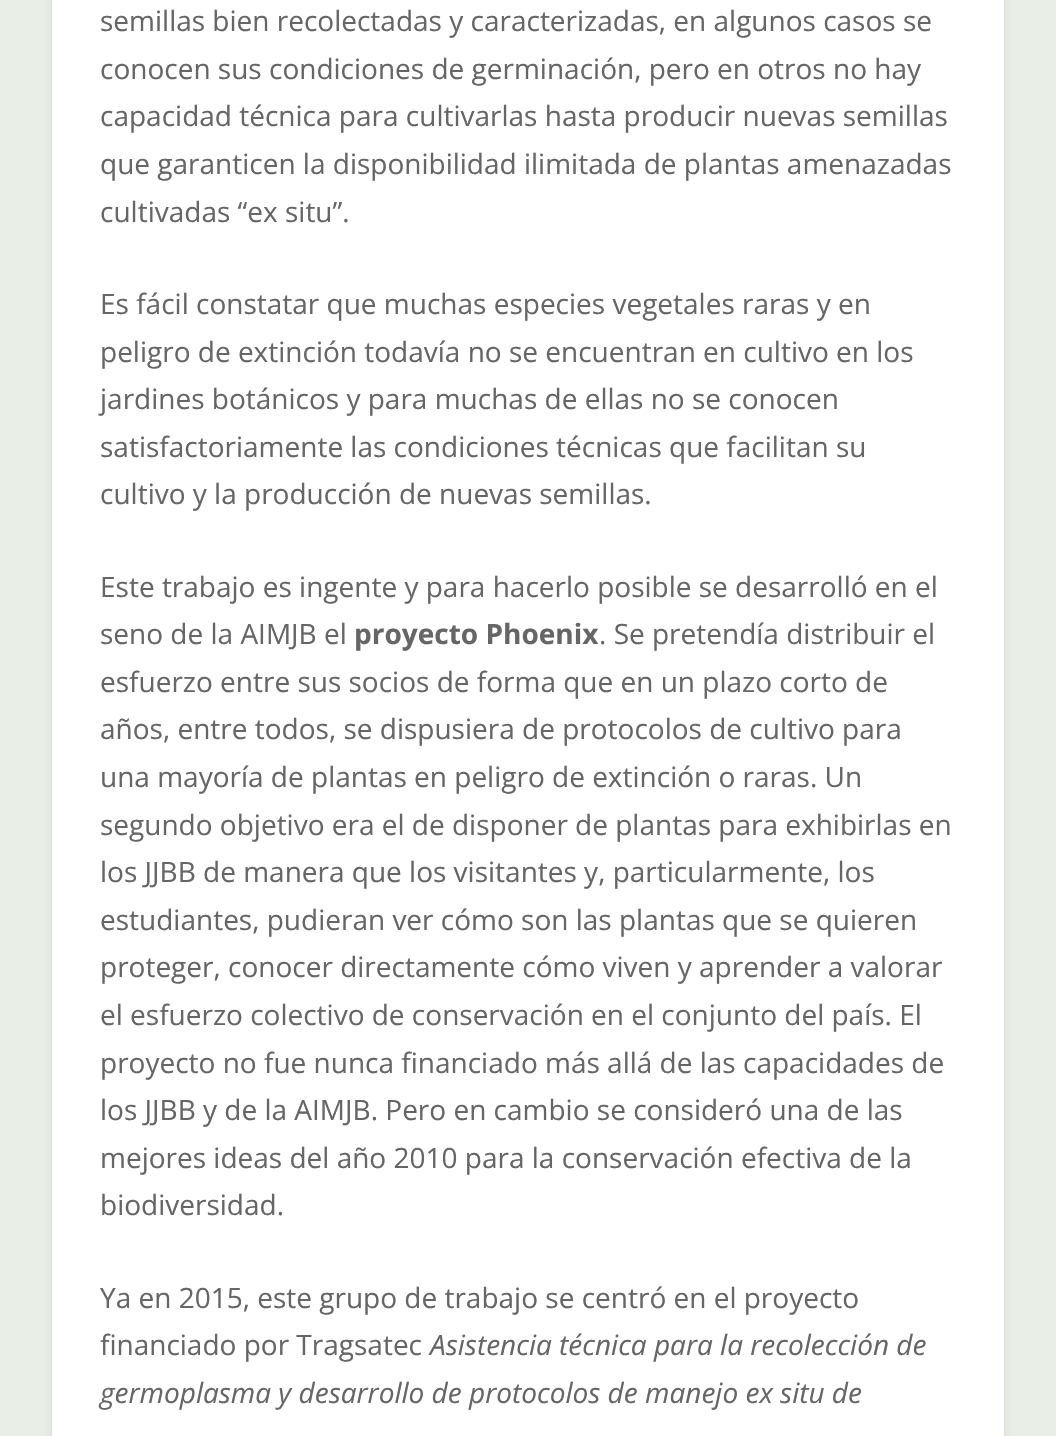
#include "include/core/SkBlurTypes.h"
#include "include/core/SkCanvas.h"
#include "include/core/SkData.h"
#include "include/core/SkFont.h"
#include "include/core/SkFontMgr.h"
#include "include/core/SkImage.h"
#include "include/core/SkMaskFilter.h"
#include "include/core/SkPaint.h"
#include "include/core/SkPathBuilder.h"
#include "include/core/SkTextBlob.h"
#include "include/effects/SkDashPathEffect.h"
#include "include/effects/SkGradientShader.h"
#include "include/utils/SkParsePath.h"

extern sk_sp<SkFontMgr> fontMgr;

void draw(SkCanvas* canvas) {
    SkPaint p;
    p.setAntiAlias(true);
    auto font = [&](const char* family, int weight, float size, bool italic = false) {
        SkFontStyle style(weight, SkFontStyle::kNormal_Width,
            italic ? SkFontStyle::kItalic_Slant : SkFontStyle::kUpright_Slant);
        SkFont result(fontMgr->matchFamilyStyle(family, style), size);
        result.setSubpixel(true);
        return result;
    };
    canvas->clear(0xFFE9EFE6);
    p.setColor(0x1A000000);
    p.setMaskFilter(SkMaskFilter::MakeBlur(kNormal_SkBlurStyle, 3));
    canvas->drawRoundRect(SkRect::MakeLTRB(52, -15, 1004, 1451), 6, 6, p);
    p.setMaskFilter(nullptr);
    p.setColor(0xFFFFFFFF);
    canvas->drawRect(SkRect::MakeLTRB(52, 0, 1004, 1436), p);
    auto font1 = font("Open Sans", 400, 28);
    p.setColor(0xFF666666);
    {
        const struct { const char* s; float x, y; } items[] = {
            {"semillas bien recolectadas y caracterizadas, en algunos casos se", 100, 31},
            {"conocen sus condiciones de germinación, pero en otros no hay", 100, 79},
            {"capacidad técnica para cultivarlas hasta producir nuevas semillas", 100, 126},
            {"que garanticen la disponibilidad ilimitada de plantas amenazadas", 100, 174},
            {"cultivadas “ex situ”.", 100, 222},
            {"Es fácil constatar que muchas especies vegetales raras y en", 100, 314},
            {"peligro de extinción todavía no se encuentran en cultivo en los", 100, 362},
            {"jardines botánicos y para muchas de ellas no se conocen", 100, 409},
            {"satisfactoriamente las condiciones técnicas que facilitan su", 100, 457},
            {"cultivo y la producción de nuevas semillas.", 100, 504},
            {"Este trabajo es ingente y para hacerlo posible se desarrolló en el", 100, 597},
            {"seno de la AIMJB el", 100, 644},
        };
        for (auto [s, x, y] : items) {
            canvas->drawString(s, x, y, font1, p);
        }
    }
    auto font2 = font("Open Sans", 700, 28);
    canvas->drawString("proyecto Phoenix", 354, 644, font2, p);
    {
        const struct { const char* s; float x, y; } items[] = {
            {". Se pretendía distribuir el", 599, 644},
            {"esfuerzo entre sus socios de forma que en un plazo corto de", 100, 692},
            {"años, entre todos, se dispusiera de protocolos de cultivo para", 100, 739},
            {"una mayoría de plantas en peligro de extinción o raras. Un", 100, 787},
            {"segundo objetivo era el de disponer de plantas para exhibirlas en", 100, 835},
            {"los JJBB de manera que los visitantes y, particularmente, los", 100, 882},
            {"estudiantes, pudieran ver cómo son las plantas que se quieren", 100, 930},
            {"proteger, conocer directamente cómo viven y aprender a valorar", 100, 977},
            {"el esfuerzo colectivo de conservación en el conjunto del país. El", 100, 1025},
            {"proyecto no fue nunca financiado más allá de las capacidades de", 100, 1073},
            {"los JJBB y de la AIMJB. Pero en cambio se consideró una de las", 100, 1120},
            {"mejores ideas del año 2010 para la conservación efectiva de la", 100, 1168},
            {"biodiversidad.", 100, 1215},
            {"Ya en 2015, este grupo de trabajo se centró en el proyecto", 100, 1308},
            {"financiado por Tragsatec", 100, 1355},
        };
        for (auto [s, x, y] : items) {
            canvas->drawString(s, x, y, font1, p);
        }
    }
    auto font3 = font("Open Sans", 400, 28, true);
    canvas->drawString("Asistencia técnica para la recolección de", 430, 1355, font3, p);
    canvas->drawString("germoplasma y desarrollo de protocolos de manejo ex situ de", 100, 1403, font3, p);
}
